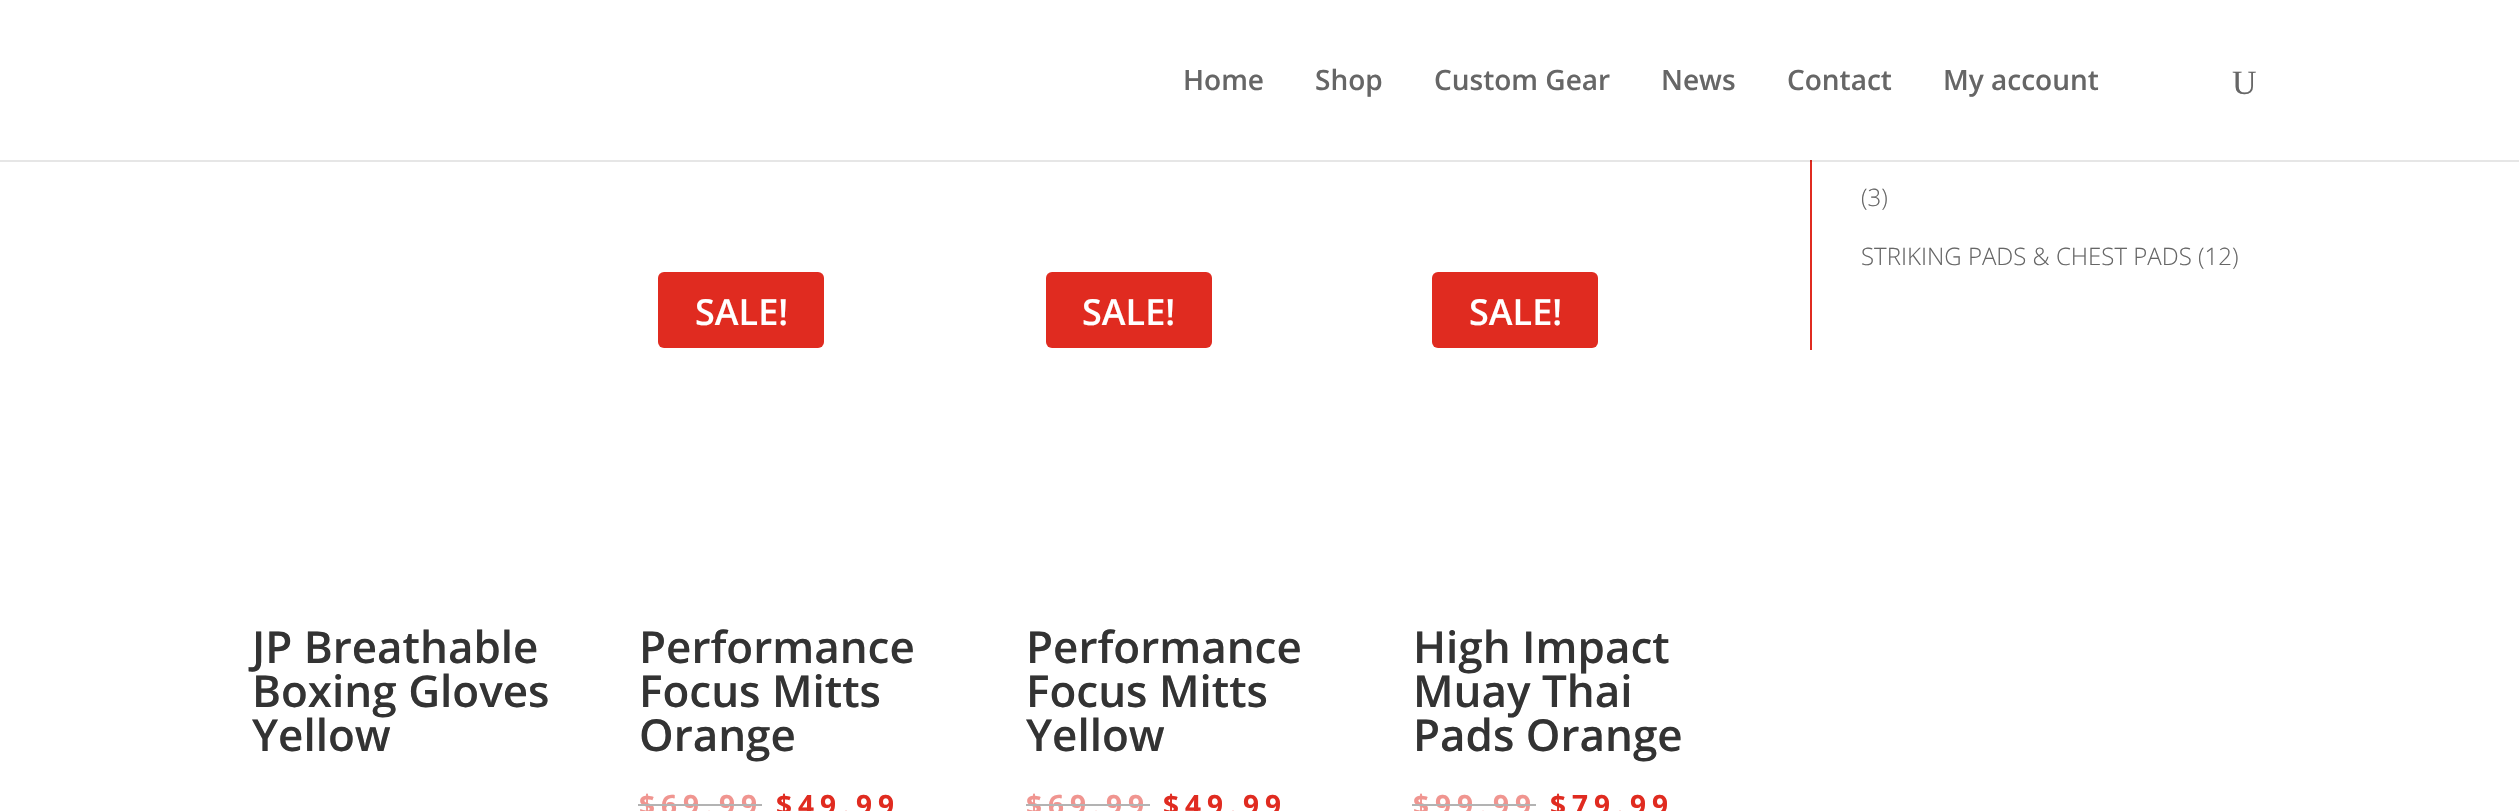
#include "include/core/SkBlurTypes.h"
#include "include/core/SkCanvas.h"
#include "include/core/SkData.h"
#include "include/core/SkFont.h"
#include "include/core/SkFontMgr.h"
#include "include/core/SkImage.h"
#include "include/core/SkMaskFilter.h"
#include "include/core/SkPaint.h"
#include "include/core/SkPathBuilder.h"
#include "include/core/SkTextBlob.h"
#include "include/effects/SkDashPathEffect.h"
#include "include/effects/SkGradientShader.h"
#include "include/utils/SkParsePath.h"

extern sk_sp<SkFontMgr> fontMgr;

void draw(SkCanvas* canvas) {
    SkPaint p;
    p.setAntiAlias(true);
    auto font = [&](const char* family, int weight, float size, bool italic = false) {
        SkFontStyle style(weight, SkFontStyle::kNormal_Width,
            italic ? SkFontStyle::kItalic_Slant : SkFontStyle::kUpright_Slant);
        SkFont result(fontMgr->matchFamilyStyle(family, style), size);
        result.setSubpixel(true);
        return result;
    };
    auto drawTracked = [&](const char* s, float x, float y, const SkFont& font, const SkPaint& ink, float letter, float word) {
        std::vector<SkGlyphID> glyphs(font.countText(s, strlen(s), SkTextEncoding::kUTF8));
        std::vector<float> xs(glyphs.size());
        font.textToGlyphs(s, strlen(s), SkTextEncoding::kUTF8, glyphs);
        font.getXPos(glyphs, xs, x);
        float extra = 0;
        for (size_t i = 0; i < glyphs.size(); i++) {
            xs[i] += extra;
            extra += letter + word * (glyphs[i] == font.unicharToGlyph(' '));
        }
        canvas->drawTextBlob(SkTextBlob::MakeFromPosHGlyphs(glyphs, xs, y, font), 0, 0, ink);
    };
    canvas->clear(0xFFFFFFFF);
    p.setColor(0xFFE6E6E6);
    canvas->drawRect(SkRect::MakeLTRB(0, 160, 2519, 162), p);
    auto font1 = font("Open Sans", 600, 28);
    p.setColor(0xFF666666);
    {
        const struct { const char* s; float x, y; } items[] = {
            {"Home", 1183, 90},
            {"Shop", 1315, 90},
            {"Custom Gear", 1434, 90},
            {"News", 1661, 90},
            {"Contact", 1787, 90},
            {"My account", 1943, 90},
        };
        for (auto [s, x, y] : items) {
            canvas->drawString(s, x, y, font1, p);
        }
    }
    auto font2 = font("Liberation Serif", 400, 34);
    canvas->drawString("U", 2232, 94, font2, p);
    p.setColor(0xFFE02B20);
    canvas->drawRect(SkRect::MakeLTRB(1810, 162, 1812, 350), p);
    p.setColor(0xFFCA271D);
    canvas->drawRect(SkRect::MakeLTRB(1810, 160, 1812, 162), p);
    auto font3 = font("Open Sans", 300, 24);
    p.setColor(0xFF666666);
    canvas->drawString("(3)", 1861, 206, font3, p);
    canvas->drawString("STRIKING PADS & CHEST PADS (12)", 1861, 265, font3, p);
    auto font4 = font("Open Sans", 600, 44);
    p.setColor(0xFF333333);
    {
        const struct { const char* s; float x, y; } items[] = {
            {"JP Breathable", 252, 663},
            {"Boxing Gloves", 252, 707},
            {"Yellow", 252, 751},
        };
        for (auto [s, x, y] : items) {
            canvas->drawString(s, x, y, font4, p);
        }
    }
    p.setColor(0xFFE02B20);
    canvas->drawRoundRect(SkRect::MakeLTRB(658, 272, 824, 348), 6, 6, p);
    auto font5 = font("Open Sans", 600, 36);
    p.setColor(0xFFFFFFFF);
    canvas->drawString("SALE!", 695, 325, font5, p);
    p.setColor(0xFF333333);
    {
        const struct { const char* s; float x, y; } items[] = {
            {"Performance", 639, 663},
            {"Focus Mitts", 639, 707},
            {"Orange", 639, 751},
        };
        for (auto [s, x, y] : items) {
            canvas->drawString(s, x, y, font4, p);
        }
    }
    auto font6 = font("Open Sans", 700, 28);
    p.setColor(0xFFF09590);
    drawTracked("$69.99", 639, 815, font6, p, 6, 0);
    p.setColor(0xFFB3B3B3);
    canvas->drawRect(SkRect::MakeLTRB(638, 804, 762, 806), p);
    p.setColor(0xFFE02B20);
    drawTracked("$49.99", 776, 815, font6, p, 6, 0);
    canvas->drawRoundRect(SkRect::MakeLTRB(1046, 272, 1212, 348), 6, 6, p);
    p.setColor(0xFFFFFFFF);
    canvas->drawString("SALE!", 1082, 325, font5, p);
    p.setColor(0xFF333333);
    {
        const struct { const char* s; float x, y; } items[] = {
            {"Performance", 1026, 663},
            {"Focus Mitts", 1026, 707},
            {"Yellow", 1026, 751},
        };
        for (auto [s, x, y] : items) {
            canvas->drawString(s, x, y, font4, p);
        }
    }
    p.setColor(0xFFF09590);
    drawTracked("$69.99", 1026, 815, font6, p, 6, 0);
    p.setColor(0xFFB3B3B3);
    canvas->drawRect(SkRect::MakeLTRB(1026, 804, 1150, 806), p);
    p.setColor(0xFFE02B20);
    drawTracked("$49.99", 1163, 815, font6, p, 6, 0);
    canvas->drawRoundRect(SkRect::MakeLTRB(1432, 272, 1598, 348), 6, 6, p);
    p.setColor(0xFFFFFFFF);
    canvas->drawString("SALE!", 1469, 325, font5, p);
    p.setColor(0xFF333333);
    {
        const struct { const char* s; float x, y; } items[] = {
            {"High Impact", 1413, 663},
            {"Muay Thai", 1413, 707},
            {"Pads Orange", 1413, 751},
        };
        for (auto [s, x, y] : items) {
            canvas->drawString(s, x, y, font4, p);
        }
    }
    p.setColor(0xFFF09590);
    drawTracked("$99.99", 1413, 815, font6, p, 6, 0);
    p.setColor(0xFFB3B3B3);
    canvas->drawRect(SkRect::MakeLTRB(1412, 804, 1536, 806), p);
    p.setColor(0xFFE02B20);
    drawTracked("$79.99", 1550, 815, font6, p, 6, 0);
}
